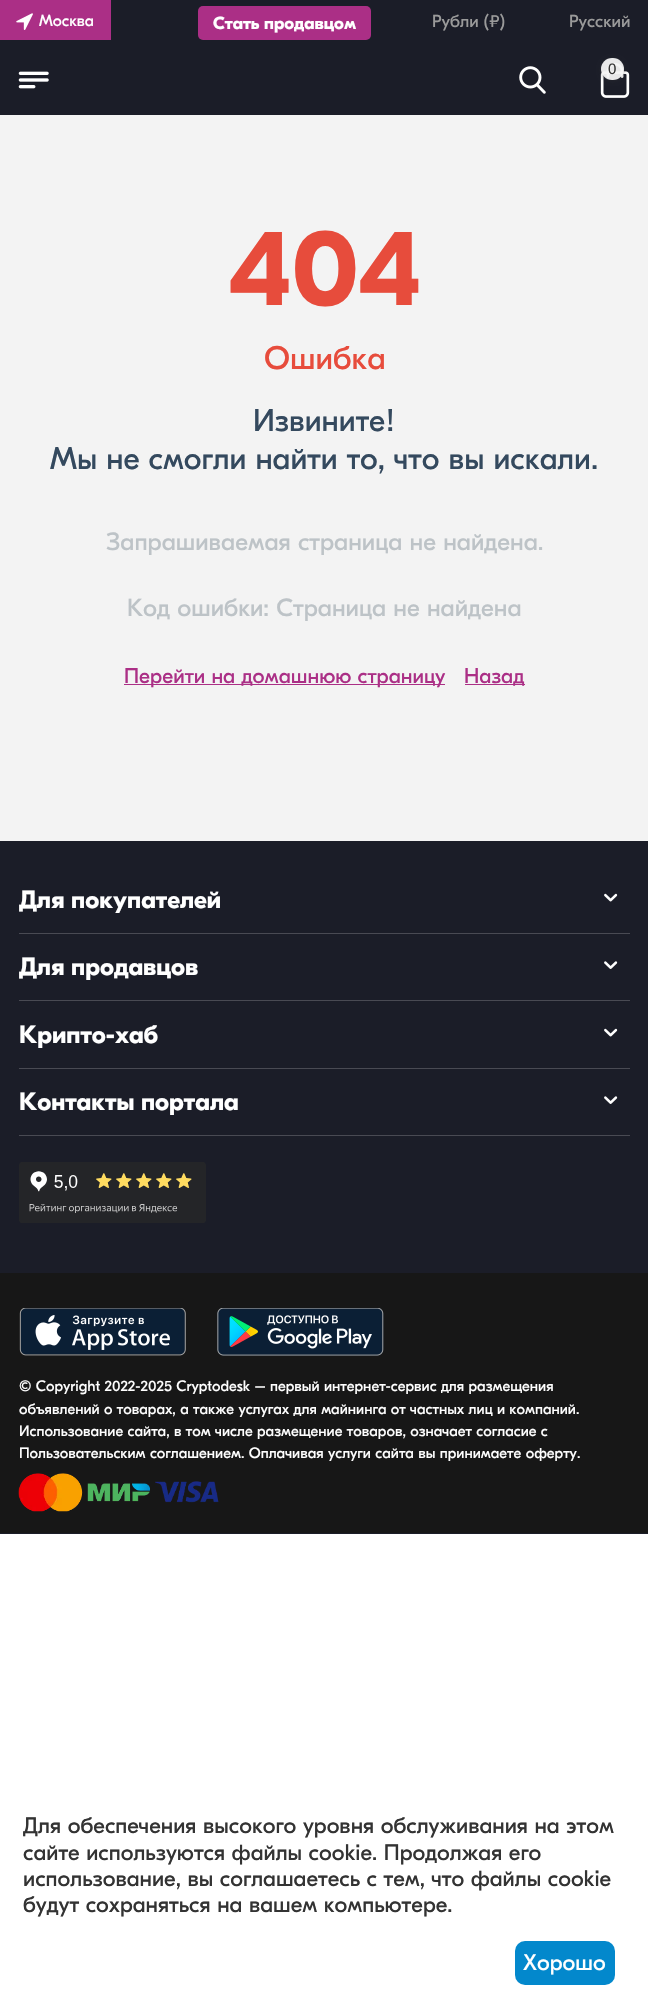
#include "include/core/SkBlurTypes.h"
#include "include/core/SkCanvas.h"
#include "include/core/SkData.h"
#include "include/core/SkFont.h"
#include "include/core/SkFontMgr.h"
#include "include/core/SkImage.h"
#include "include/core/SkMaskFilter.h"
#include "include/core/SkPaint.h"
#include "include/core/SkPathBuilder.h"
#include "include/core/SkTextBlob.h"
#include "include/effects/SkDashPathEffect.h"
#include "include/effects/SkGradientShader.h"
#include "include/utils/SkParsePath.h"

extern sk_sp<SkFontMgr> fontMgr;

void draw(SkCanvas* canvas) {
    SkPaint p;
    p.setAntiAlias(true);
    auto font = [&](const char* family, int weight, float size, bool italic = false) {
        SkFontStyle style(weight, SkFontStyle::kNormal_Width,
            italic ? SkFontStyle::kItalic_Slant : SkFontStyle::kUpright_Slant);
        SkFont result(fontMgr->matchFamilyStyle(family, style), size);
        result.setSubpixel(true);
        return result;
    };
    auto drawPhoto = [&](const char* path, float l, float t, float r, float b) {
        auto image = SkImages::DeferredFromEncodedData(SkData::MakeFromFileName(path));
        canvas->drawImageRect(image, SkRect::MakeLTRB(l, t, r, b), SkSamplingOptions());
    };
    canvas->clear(0xFFFFFFFF);
    p.setColor(0xFF1B1D28);
    canvas->drawRect(SkRect::MakeLTRB(0, 0, 648, 115), p);
    p.setColor(0xFFAB2F86);
    canvas->drawRect(SkRect::MakeLTRB(0, 0, 111, 40), p);
    drawPhoto("media/1.png", 16, 13, 33, 30);
    auto font1 = font("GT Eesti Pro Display", 400, 16);
    p.setColor(0xFFFFFFFF);
    canvas->drawString("Москва", 39, 26, font1, p);
    p.setColor(0xFFAB2F86);
    canvas->drawRoundRect(SkRect::MakeLTRB(198, 6, 371, 40), 5, 5, p);
    auto font2 = font("GT Eesti Pro Display", 700, 17.5f);
    p.setColor(0xFFFFFFFF);
    canvas->drawString("Стать продавцом", 213, 29, font2, p);
    auto font3 = font("GT Eesti Pro Display", 400, 17.5f);
    p.setColor(0xFF9A9A9A);
    canvas->drawString("Рубли (₽)", 432, 27, font3, p);
    canvas->drawString("Русский", 569, 27, font3, p);
    drawPhoto("media/2.png", 18, 71, 49, 89);
    drawPhoto("media/3.png", 519, 66, 546, 94);
    drawPhoto("media/4.png", 600, 62, 630, 98);
    canvas->save();
    canvas->clipPath(SkPathBuilder(SkPathFillType::kEvenOdd).moveTo(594, 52).lineTo(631, 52).lineTo(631, 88).lineTo(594, 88).close().moveTo(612, 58).lineTo(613, 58).cubicTo(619, 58, 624, 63, 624, 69).cubicTo(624, 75, 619, 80, 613, 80).lineTo(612, 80).cubicTo(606, 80, 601, 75, 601, 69).cubicTo(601, 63, 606, 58, 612, 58).close().detach(), true);
    p.setColor(0x59333333);
    p.setMaskFilter(SkMaskFilter::MakeBlur(kNormal_SkBlurStyle, 2));
    canvas->drawRoundRect(SkRect::MakeLTRB(601, 59, 624, 81), 11, 11, p);
    p.setMaskFilter(nullptr);
    canvas->restore();
    p.setColor(0xF2F3F3F3);
    canvas->drawRoundRect(SkRect::MakeLTRB(601, 58, 624, 80), 11, 11, p);
    auto font4 = font("Liberation Sans", 400, 15);
    p.setColor(0xFF333333);
    canvas->drawString("0", 608, 74, font4, p);
    p.setColor(0xFFF3F3F3);
    canvas->drawRect(SkRect::MakeLTRB(0, 115, 648, 841), p);
    auto font5 = font("GT Eesti Pro Display", 700, 108);
    p.setColor(0xFFE74C3C);
    canvas->drawString("404", 229, 305, font5, p);
    auto font6 = font("GT Eesti Pro Display", 400, 32.5f);
    canvas->drawString("Ошибка", 264, 369, font6, p);
    auto font7 = font("GT Eesti Pro Display", 400, 31.25f);
    p.setColor(0xFF34495E);
    canvas->drawString("Извините!", 253, 431, font7, p);
    canvas->drawString("Мы не смогли найти то, что вы искали.", 50, 469, font7, p);
    auto font8 = font("GT Eesti Pro Display", 400, 24.75f);
    p.setColor(0xFFBDC3C7);
    canvas->drawString("Запрашиваемая страница не найдена.", 106, 550, font8, p);
    canvas->drawString("Код ошибки: Страница не найдена", 127, 616, font8, p);
    p.setColor(0xFFAB2F86);
    canvas->drawRect(SkRect::MakeLTRB(124, 684, 445, 685), p);
    auto font9 = font("GT Eesti Pro Display", 400, 21.25f);
    canvas->drawString("Перейти на домашнюю страницу", 124, 683, font9, p);
    canvas->drawRect(SkRect::MakeLTRB(465, 684, 525, 685), p);
    canvas->drawString("Назад", 464, 683, font9, p);
    p.setColor(0xFF1B1D28);
    canvas->drawRect(SkRect::MakeLTRB(0, 841, 648, 1534), p);
    p.setColor(0xFF494A53);
    canvas->drawRect(SkRect::MakeLTRB(19, 933, 630, 934), p);
    auto font10 = font("GT Eesti Pro Display", 700, 25);
    p.setColor(0xFFFFFFFF);
    canvas->drawString("Для покупателей", 19, 908, font10, p);
    drawPhoto("media/5.png", 604, 893, 618, 902);
    p.setColor(0xFF494A53);
    canvas->drawRect(SkRect::MakeLTRB(19, 1000, 630, 1001), p);
    p.setColor(0xFFFFFFFF);
    canvas->drawString("Для продавцов", 19, 975, font10, p);
    drawPhoto("media/6.png", 604, 961, 618, 969);
    p.setColor(0xFF494A53);
    canvas->drawRect(SkRect::MakeLTRB(19, 1068, 630, 1069), p);
    p.setColor(0xFFFFFFFF);
    canvas->drawString("Крипто-хаб", 19, 1043, font10, p);
    drawPhoto("media/5.png", 604, 1028, 618, 1037);
    p.setColor(0xFF494A53);
    canvas->drawRect(SkRect::MakeLTRB(19, 1135, 630, 1136), p);
    p.setColor(0xFFFFFFFF);
    canvas->drawString("Контакты портала", 19, 1110, font10, p);
    drawPhoto("media/6.png", 604, 1096, 618, 1104);
    drawPhoto("media/7.png", 19, 1162, 206, 1223);
    p.setColor(0xFF171717);
    canvas->drawRect(SkRect::MakeLTRB(0, 1273, 648, 1533), p);
    drawPhoto("media/8.png", 19, 1308, 186, 1356);
    drawPhoto("media/9.png", 217, 1308, 384, 1356);
    auto font11 = font("GT Eesti Pro Display", 400, 15);
    p.setColor(0xFFFFFFFF);
    {
        const struct { const char* s; float x, y; } items[] = {
            {"© Copyright 2022-2025 Cryptodesk – первый интернет-сервис для размещения", 19, 1391},
            {"объявлений о товарах, а также услугах для майнинга от частных лиц и компаний.", 19, 1414},
            {"Использование сайта, в том числе размещение товаров, означает согласие с", 19, 1436},
            {"Пользовательским соглашением. Оплачивая услуги сайта вы принимаете оферту.", 19, 1458},
        };
        for (auto [s, x, y] : items) {
            canvas->drawString(s, x, y, font11, p);
        }
    }
    drawPhoto("media/10.png", 18, 1473, 83, 1512);
    drawPhoto("media/11.png", 87, 1483, 150, 1502);
    drawPhoto("media/12.png", 155, 1481, 219, 1503);
    auto font12 = font("GT Eesti Pro Display", 400, 22.5f);
    p.setColor(0xFF333333);
    {
        const struct { const char* s; float x, y; } items[] = {
            {"Для обеспечения высокого уровня обслуживания на этом", 23, 1833},
            {"сайте используются файлы cookie. Продолжая его", 23, 1860},
            {"использование, вы соглашаетесь с тем, что файлы cookie", 23, 1886},
            {"будут сохраняться на вашем компьютере.", 23, 1912},
        };
        for (auto [s, x, y] : items) {
            canvas->drawString(s, x, y, font12, p);
        }
    }
    p.setColor(0xFF0388CC);
    canvas->drawRoundRect(SkRect::MakeLTRB(515, 1941, 615, 1985), 10, 10, p);
    p.setColor(0xFFFFFFFF);
    canvas->drawString("Хорошо", 523, 1970, font12, p);
}
